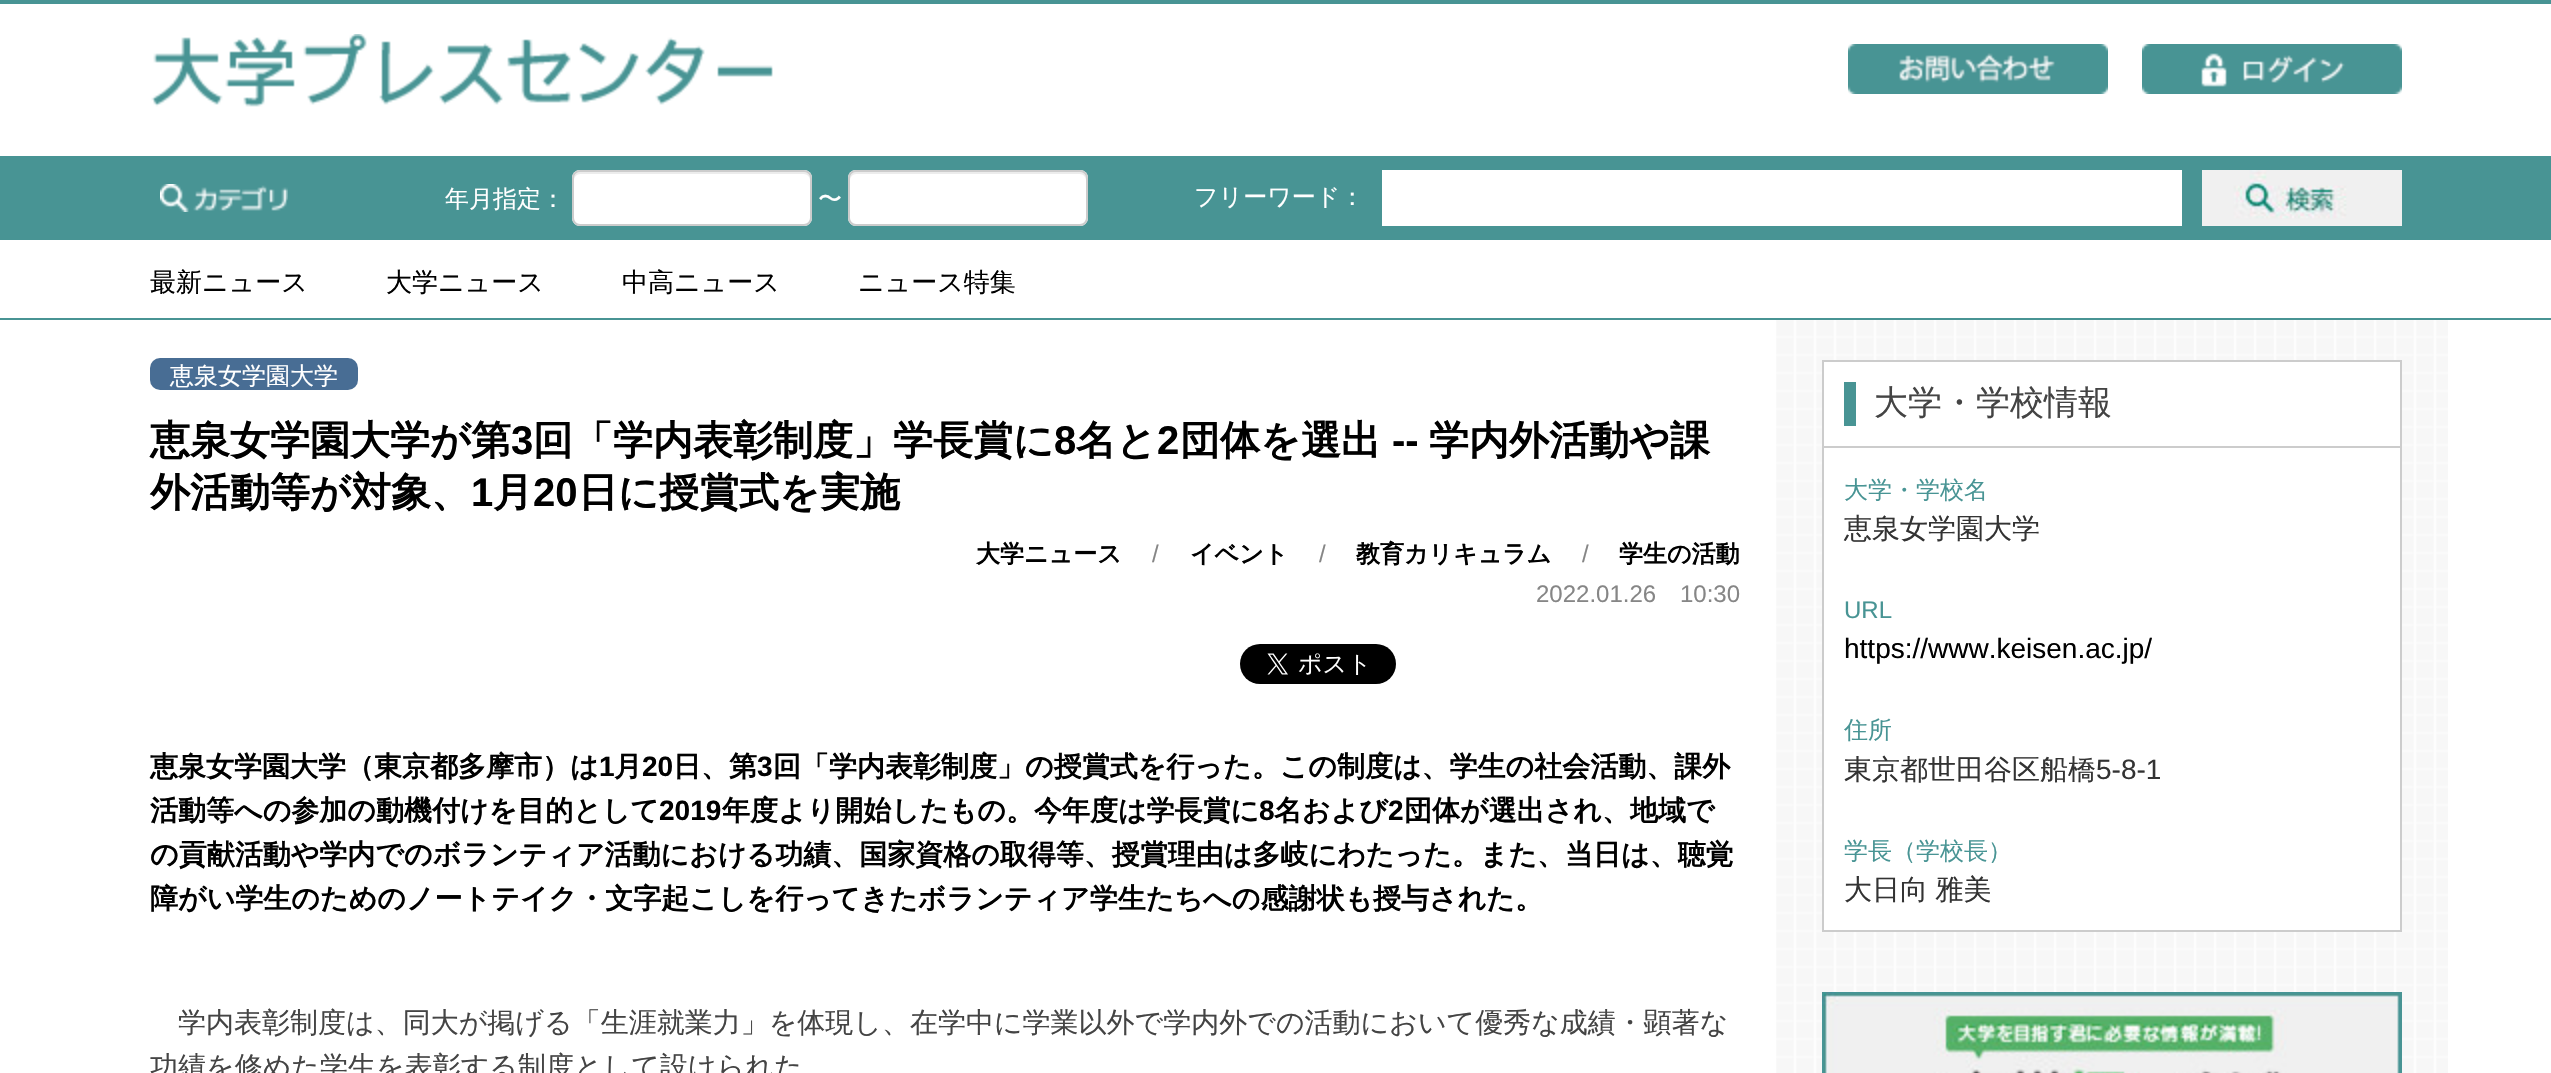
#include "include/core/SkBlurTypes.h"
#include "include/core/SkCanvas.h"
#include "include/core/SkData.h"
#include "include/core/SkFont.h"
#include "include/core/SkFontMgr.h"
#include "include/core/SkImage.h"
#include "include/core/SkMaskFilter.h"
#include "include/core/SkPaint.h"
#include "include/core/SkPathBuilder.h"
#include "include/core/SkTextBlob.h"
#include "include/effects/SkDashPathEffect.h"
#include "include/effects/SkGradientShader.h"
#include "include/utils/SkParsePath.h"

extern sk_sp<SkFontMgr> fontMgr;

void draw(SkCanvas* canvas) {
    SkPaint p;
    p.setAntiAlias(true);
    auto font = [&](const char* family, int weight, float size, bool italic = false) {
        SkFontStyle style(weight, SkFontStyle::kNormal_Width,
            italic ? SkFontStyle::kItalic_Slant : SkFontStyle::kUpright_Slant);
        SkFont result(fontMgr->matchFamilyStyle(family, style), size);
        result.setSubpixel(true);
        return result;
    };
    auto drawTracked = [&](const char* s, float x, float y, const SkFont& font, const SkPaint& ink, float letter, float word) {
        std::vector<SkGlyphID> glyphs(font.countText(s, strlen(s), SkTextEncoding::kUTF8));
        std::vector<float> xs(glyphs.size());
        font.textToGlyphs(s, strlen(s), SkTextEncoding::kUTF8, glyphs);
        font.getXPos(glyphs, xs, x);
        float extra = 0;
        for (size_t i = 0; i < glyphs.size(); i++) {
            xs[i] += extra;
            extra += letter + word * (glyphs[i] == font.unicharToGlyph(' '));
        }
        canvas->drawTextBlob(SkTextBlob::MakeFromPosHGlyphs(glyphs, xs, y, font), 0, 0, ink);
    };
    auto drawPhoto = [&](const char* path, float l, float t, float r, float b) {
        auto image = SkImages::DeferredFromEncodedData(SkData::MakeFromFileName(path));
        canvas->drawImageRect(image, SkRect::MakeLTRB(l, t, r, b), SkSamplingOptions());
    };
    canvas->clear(0xFFFFFFFF);
    p.setColor(0xFF489494);
    canvas->drawRect(SkRect::MakeLTRB(0, 0, 2551, 4), p);
    drawPhoto("media/1.png", 151, 34, 773, 107);
    drawPhoto("media/2.png", 1848, 44, 2108, 94);
    drawPhoto("media/3.png", 2142, 44, 2402, 94);
    canvas->drawRect(SkRect::MakeLTRB(0, 156, 2551, 240), p);
    drawPhoto("media/4.png", 160, 184, 288, 212);
    auto font1 = font("WenQuanYi Zen Hei", 500, 24);
    p.setColor(0xFFFFFFFF);
    canvas->drawString("年月指定：", 445, 207, font1, p);
    canvas->drawRoundRect(SkRect::MakeLTRB(572, 170, 812, 226), 8, 8, p);
    p.setColor(0xFFECECEC);
    canvas->drawPath(SkPathBuilder().moveTo(580, 174).lineTo(804, 174).cubicTo(807, 174, 810, 177, 810, 180).lineTo(810, 178).cubicTo(810, 175, 807, 172, 804, 172).lineTo(580, 172).cubicTo(577, 172, 574, 175, 574, 178).lineTo(574, 180).cubicTo(574, 177, 577, 174, 580, 174).close().detach(), p);
    p.setStyle(SkPaint::kStroke_Style);
    p.setStrokeWidth(2);
    p.setColor(0xFFCCCCCC);
    canvas->drawRoundRect(SkRect::MakeLTRB(573, 171, 811, 225), 7, 7, p);
    p.setStyle(SkPaint::kFill_Style);
    p.setColor(0xFFFFFFFF);
    canvas->drawString("〜", 818, 207, font1, p);
    canvas->drawRoundRect(SkRect::MakeLTRB(848, 170, 1088, 226), 8, 8, p);
    p.setColor(0xFFECECEC);
    canvas->drawPath(SkPathBuilder().moveTo(856, 174).lineTo(1080, 174).cubicTo(1083, 174, 1086, 177, 1086, 180).lineTo(1086, 178).cubicTo(1086, 175, 1083, 172, 1080, 172).lineTo(856, 172).cubicTo(853, 172, 850, 175, 850, 178).lineTo(850, 180).cubicTo(850, 177, 853, 174, 856, 174).close().detach(), p);
    p.setStyle(SkPaint::kStroke_Style);
    p.setColor(0xFFCCCCCC);
    canvas->drawRoundRect(SkRect::MakeLTRB(849, 171, 1087, 225), 7, 7, p);
    p.setStyle(SkPaint::kFill_Style);
    p.setColor(0xFFFFFFFF);
    canvas->drawString("フリーワード：", 1194, 205, font1, p);
    canvas->drawRect(SkRect::MakeLTRB(1382, 170, 2182, 226), p);
    drawPhoto("media/5.png", 2202, 170, 2402, 226);
    p.setColor(0xFF489494);
    canvas->drawRect(SkRect::MakeLTRB(0, 318, 2551, 320), p);
    auto font2 = font("WenQuanYi Zen Hei", 500, 26);
    p.setColor(0xFF000000);
    {
        const struct { const char* s; float x, y; } items[] = {
            {"最新ニュース", 150, 291},
            {"大学ニュース", 386, 291},
            {"中高ニュース", 622, 291},
            {"ニュース特集", 858, 291},
        };
        for (auto [s, x, y] : items) {
            canvas->drawString(s, x, y, font2, p);
        }
    }
    drawPhoto("media/6.png", 1776, 320, 2448, 1073);
    p.setColor(0xFF486D94);
    canvas->drawRoundRect(SkRect::MakeLTRB(150, 358, 358, 390), 10, 10, p);
    p.setColor(0xFFFFFFFF);
    canvas->drawString("恵泉女学園大学", 170, 384, font1, p);
    auto font3 = font("WenQuanYi Zen Hei", 700, 40);
    p.setColor(0xFF000000);
    canvas->drawString("恵泉女学園大学が第", 150, 454, font3, p);
    auto font4 = font("Liberation Sans", 700, 40);
    canvas->drawString("3", 511, 454, font4, p);
    canvas->drawString("回「学内表彰制度」学長賞に", 533, 454, font3, p);
    canvas->drawString("8", 1054, 454, font4, p);
    canvas->drawString("名と", 1076, 454, font3, p);
    canvas->drawString("2", 1157, 454, font4, p);
    canvas->drawString("団体を選出", 1180, 454, font3, p);
    canvas->drawString("--", 1392, 454, font4, p);
    canvas->drawString("学内外活動や課", 1429, 454, font3, p);
    canvas->drawString("外活動等が対象、", 150, 506, font3, p);
    canvas->drawString("1", 471, 506, font4, p);
    canvas->drawString("月", 493, 506, font3, p);
    canvas->drawString("20", 533, 506, font4, p);
    canvas->drawString("日に授賞式を実施", 578, 506, font3, p);
    auto font5 = font("WenQuanYi Zen Hei", 700, 24);
    canvas->drawString("大学ニュース", 976, 562, font5, p);
    auto font6 = font("Liberation Sans", 400, 24);
    p.setColor(0xFF868686);
    canvas->drawString("/", 1152, 562, font6, p);
    p.setColor(0xFF000000);
    canvas->drawString("イベント", 1190, 562, font5, p);
    p.setColor(0xFF868686);
    canvas->drawString("/", 1319, 562, font6, p);
    p.setColor(0xFF000000);
    canvas->drawString("教育カリキュラム", 1356, 562, font5, p);
    p.setColor(0xFF868686);
    canvas->drawString("/", 1582, 562, font6, p);
    p.setColor(0xFF000000);
    canvas->drawString("学生の活動", 1619, 562, font5, p);
    p.setColor(0xFF868686);
    canvas->drawString("2022.01.26", 1536, 602, font6, p);
    canvas->drawString("10:30", 1680, 602, font6, p);
    drawPhoto("media/7.png", 1240, 644, 1396, 684);
    auto font7 = font("WenQuanYi Zen Hei", 700, 28);
    p.setColor(0xFF000000);
    canvas->drawString("恵泉女学園大学（東京都多摩市）は", 150, 776, font7, p);
    auto font8 = font("Liberation Sans", 700, 28);
    canvas->drawString("1", 599, 776, font8, p);
    canvas->drawString("月", 614, 776, font7, p);
    canvas->drawString("20", 642, 776, font8, p);
    canvas->drawString("日、第", 673, 776, font7, p);
    canvas->drawString("3", 757, 776, font8, p);
    canvas->drawString("回「学内表彰制度」の授賞式を行った。この制度は、学生の社会活動、課外", 773, 776, font7, p);
    canvas->drawString("活動等への参加の動機付けを目的として", 150, 820, font7, p);
    canvas->drawString("2019", 659, 820, font8, p);
    canvas->drawString("年度より開始したもの。今年度は学長賞に", 722, 820, font7, p);
    canvas->drawString("8", 1259, 820, font8, p);
    canvas->drawString("名および", 1274, 820, font7, p);
    canvas->drawString("2", 1388, 820, font8, p);
    {
        const struct { const char* s; float x, y; } items[] = {
            {"団体が選出され、地域で", 1404, 820},
            {"の貢献活動や学内でのボランティア活動における功績、国家資格の取得等、授賞理由は多岐にわたった。また、当日は、聴覚", 150, 864},
            {"障がい学生のためのノートテイク・文字起こしを行ってきたボランティア学生たちへの感謝状も授与された。", 150, 908},
        };
        for (auto [s, x, y] : items) {
            canvas->drawString(s, x, y, font7, p);
        }
    }
    auto font9 = font("WenQuanYi Zen Hei", 500, 28);
    p.setColor(0xFF444444);
    canvas->drawString("学内表彰制度は、同大が掲げる「生涯就業力」を体現し、在学中に学業以外で学内外での活動において優秀な成績・顕著な", 178, 1032, font9, p);
    canvas->drawString("功績を修めた学生を表彰する制度として設けられた", 150, 1076, font9, p);
    {
        const struct { float l, t, r, b; SkColor color; } items[] = {
            {1822, 360, 2402, 362, 0xFFCCCCCC},
            {2400, 360, 2402, 932, 0xFFCCCCCC},
            {1822, 930, 2402, 932, 0xFFCCCCCC},
            {1822, 360, 1824, 932, 0xFFCCCCCC},
            {1824, 362, 2400, 446, 0xFFFFFFFF},
            {1822, 446, 2402, 448, 0xFFCCCCCC},
            {1844, 382, 1856, 426, 0xFF489494},
        };
        for (auto [l, t, r, b, color] : items) {
            p.setColor(color);
            canvas->drawRect(SkRect::MakeLTRB(l, t, r, b), p);
        }
    }
    auto font10 = font("WenQuanYi Zen Hei", 500, 34);
    p.setColor(0xFF444444);
    canvas->drawString("大学・学校情報", 1874, 414, font10, p);
    p.setColor(0xFFFFFFFF);
    canvas->drawRect(SkRect::MakeLTRB(1824, 448, 2400, 930), p);
    p.setColor(0xFF489494);
    canvas->drawString("大学・学校名", 1844, 498, font1, p);
    p.setColor(0xFF333333);
    canvas->drawString("恵泉女学園大学", 1844, 538, font9, p);
    p.setColor(0xFF489494);
    canvas->drawString("URL", 1844, 618, font6, p);
    auto font11 = font("Liberation Sans", 400, 28);
    p.setColor(0xFF000000);
    canvas->drawString("https://www.keisen.ac.jp/", 1844, 658, font11, p);
    p.setColor(0xFF489494);
    canvas->drawString("住所", 1844, 738, font1, p);
    p.setColor(0xFF333333);
    canvas->drawString("東京都世田谷区船橋", 1844, 779, font9, p);
    canvas->drawString("5-8-1", 2096, 779, font11, p);
    p.setColor(0xFF489494);
    canvas->drawString("学長（学校長）", 1844, 859, font1, p);
    p.setColor(0xFF333333);
    drawTracked("大日向 雅美", 1844, 899, font9, p, 0, -1);
    drawPhoto("media/8.png", 1822, 992, 2402, 1073);
}
